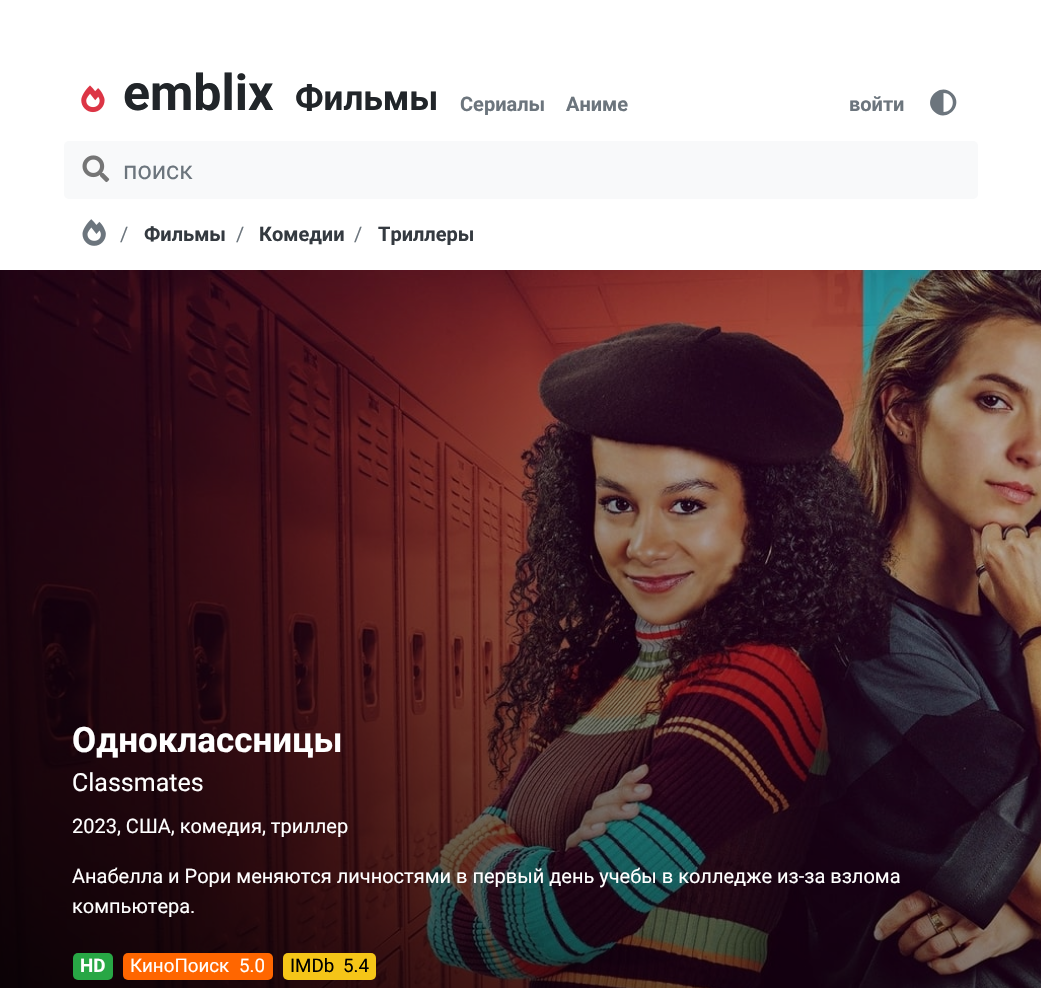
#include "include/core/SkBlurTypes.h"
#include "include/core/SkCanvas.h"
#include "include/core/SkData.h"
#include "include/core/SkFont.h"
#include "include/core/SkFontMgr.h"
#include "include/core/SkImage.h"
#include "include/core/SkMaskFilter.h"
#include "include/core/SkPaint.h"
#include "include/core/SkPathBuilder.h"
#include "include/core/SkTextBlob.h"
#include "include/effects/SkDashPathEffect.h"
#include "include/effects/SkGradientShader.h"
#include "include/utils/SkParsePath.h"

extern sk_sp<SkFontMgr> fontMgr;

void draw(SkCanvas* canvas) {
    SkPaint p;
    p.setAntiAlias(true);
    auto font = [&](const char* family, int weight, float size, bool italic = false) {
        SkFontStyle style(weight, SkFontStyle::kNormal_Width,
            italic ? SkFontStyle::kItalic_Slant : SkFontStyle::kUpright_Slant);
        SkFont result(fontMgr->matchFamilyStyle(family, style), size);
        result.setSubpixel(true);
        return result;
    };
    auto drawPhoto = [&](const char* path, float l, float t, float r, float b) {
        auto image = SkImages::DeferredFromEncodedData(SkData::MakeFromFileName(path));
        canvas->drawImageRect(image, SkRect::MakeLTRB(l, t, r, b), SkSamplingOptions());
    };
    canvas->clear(0xFFFFFFFF);
    drawPhoto("media/1.png", 81, 85, 105, 113);
    auto font1 = font("Roboto", 700, 50);
    p.setColor(0xFF212529);
    canvas->drawString("emblix", 123, 110, font1, p);
    auto font2 = font("Roboto", 700, 35);
    canvas->drawString("Фильмы", 295, 110, font2, p);
    auto font3 = font("Roboto", 700, 20);
    p.setColor(0xFF6C757D);
    {
        const struct { const char* s; float x, y; } items[] = {
            {"Сериалы", 460, 111},
            {"Аниме", 566, 111},
            {"войти", 849, 111},
        };
        for (auto [s, x, y] : items) {
            canvas->drawString(s, x, y, font3, p);
        }
    }
    canvas->drawPath(SkPathBuilder().moveTo(934, 111.5f).cubicTo(922, 99.5f, 940.5f, 81.5f, 952.5f, 93.5f).cubicTo(964.5f, 105.5f, 946, 123.5f, 934, 111.5f).close().moveTo(943.5f, 112).cubicTo(956, 112, 956, 93, 943.5f, 93).close().detach(), p);
    p.setColor(0xFFF8F9FA);
    canvas->drawRoundRect(SkRect::MakeLTRB(64, 141, 978, 199), 5, 5, p);
    drawPhoto("media/2.png", 82, 155, 110, 183);
    auto font4 = font("Roboto", 400, 25);
    p.setColor(0xFF6C757D);
    canvas->drawString("поиск", 123, 179, font4, p);
    drawPhoto("media/3.png", 82, 219, 106, 246);
    auto font5 = font("Roboto", 400, 20);
    canvas->drawString("/", 120, 241, font5, p);
    p.setColor(0xFF343A40);
    canvas->drawString("Фильмы", 144, 241, font3, p);
    p.setColor(0xFF6C757D);
    canvas->drawString("/", 236, 241, font5, p);
    p.setColor(0xFF343A40);
    canvas->drawString("Комедии", 259, 241, font3, p);
    p.setColor(0xFF6C757D);
    canvas->drawString("/", 354, 241, font5, p);
    p.setColor(0xFF343A40);
    canvas->drawString("Триллеры", 378, 241, font3, p);
    drawPhoto("media/4.png", 0, 270, 1041, 988);
    p.setColor(0xFFFFFFFF);
    canvas->drawString("Одноклассницы", 72, 752, font2, p);
    canvas->drawString("Classmates", 72, 791, font4, p);
    {
        const struct { const char* s; float x, y; } items[] = {
            {"2023, США, комедия, триллер", 72, 833},
            {"Анабелла и Рори меняются личностями в первый день учебы в колледже из-за взлома", 72, 883},
            {"компьютера.", 72, 913},
        };
        for (auto [s, x, y] : items) {
            canvas->drawString(s, x, y, font5, p);
        }
    }
    p.setColor(0xFF28A745);
    canvas->drawRoundRect(SkRect::MakeLTRB(73, 953, 113, 980), 5, 5, p);
    auto font6 = font("Roboto", 700, 18.75f);
    p.setColor(0xFFFFFFFF);
    canvas->drawString("HD", 80, 972, font6, p);
    p.setColor(0xFFFF6600);
    canvas->drawRoundRect(SkRect::MakeLTRB(123, 953, 273, 980), 5, 5, p);
    auto font7 = font("Roboto", 400, 18.75f);
    p.setColor(0xFFFFFFFF);
    canvas->drawString("КиноПоиск", 130, 972, font7, p);
    canvas->drawString("5.0", 239, 972, font7, p);
    p.setColor(0xFFF5C518);
    canvas->drawRoundRect(SkRect::MakeLTRB(283, 953, 376, 980), 5, 5, p);
    p.setColor(0xFF000000);
    canvas->drawString("IMDb", 290, 972, font7, p);
    canvas->drawString("5.4", 343, 972, font7, p);
}
